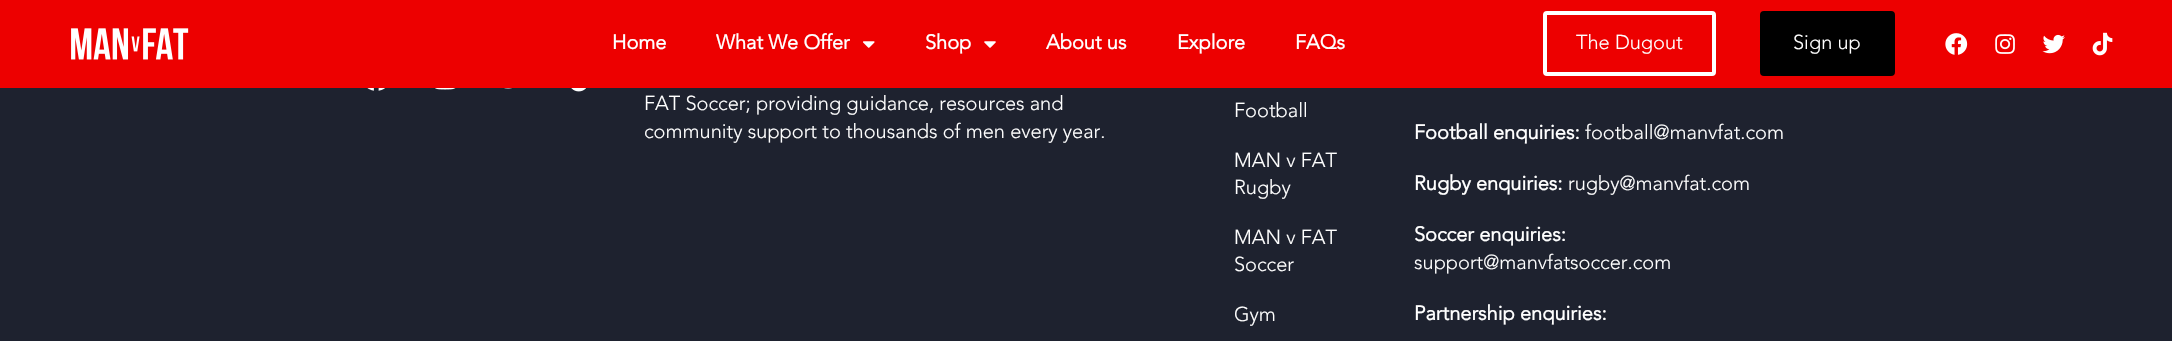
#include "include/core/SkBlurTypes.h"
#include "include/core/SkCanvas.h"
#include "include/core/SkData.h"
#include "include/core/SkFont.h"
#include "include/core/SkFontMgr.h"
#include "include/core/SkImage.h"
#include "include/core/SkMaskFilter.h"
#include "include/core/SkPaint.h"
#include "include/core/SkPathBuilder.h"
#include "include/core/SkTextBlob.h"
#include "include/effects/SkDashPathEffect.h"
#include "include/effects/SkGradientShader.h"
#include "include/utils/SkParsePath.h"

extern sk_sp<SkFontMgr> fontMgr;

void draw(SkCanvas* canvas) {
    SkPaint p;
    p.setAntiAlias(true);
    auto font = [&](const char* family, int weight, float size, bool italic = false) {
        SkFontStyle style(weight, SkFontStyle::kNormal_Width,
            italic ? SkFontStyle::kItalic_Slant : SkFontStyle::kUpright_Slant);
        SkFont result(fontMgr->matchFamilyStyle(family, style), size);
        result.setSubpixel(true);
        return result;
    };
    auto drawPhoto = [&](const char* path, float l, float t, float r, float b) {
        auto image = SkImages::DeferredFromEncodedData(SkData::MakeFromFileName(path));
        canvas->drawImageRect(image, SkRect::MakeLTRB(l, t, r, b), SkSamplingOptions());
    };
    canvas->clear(0xFF1E222F);
    p.setColor(0xFFED0000);
    canvas->drawRect(SkRect::MakeLTRB(0, 0, 2172, 88), p);
    drawPhoto("media/1.png", 71, 28, 189, 60);
    auto font1 = font("Avenir", 700, 20);
    p.setColor(0xFFFFFFFF);
    canvas->drawString("Home", 612, 49, font1, p);
    canvas->drawString("What We Offer", 716, 49, font1, p);
    drawPhoto("media/2.png", 863, 41, 875, 48);
    canvas->drawString("Shop", 925, 49, font1, p);
    drawPhoto("media/3.png", 984, 41, 996, 48);
    {
        const struct { const char* s; float x, y; } items[] = {
            {"About us", 1046, 49},
            {"Explore", 1177, 49},
            {"FAQs", 1295, 49},
        };
        for (auto [s, x, y] : items) {
            canvas->drawString(s, x, y, font1, p);
        }
    }
    p.setStyle(SkPaint::kStroke_Style);
    p.setStrokeWidth(4);
    canvas->drawRoundRect(SkRect::MakeLTRB(1545, 13, 1714, 74), 2, 2, p);
    auto font2 = font("Avenir", 300, 20);
    p.setStyle(SkPaint::kFill_Style);
    canvas->drawString("The Dugout", 1576, 49, font2, p);
    p.setColor(0xFF000000);
    canvas->drawRoundRect(SkRect::MakeLTRB(1762, 13, 1893, 74), 2, 2, p);
    p.setStyle(SkPaint::kStroke_Style);
    canvas->drawRoundRect(SkRect::MakeLTRB(1762, 13, 1893, 74), 2, 2, p);
    p.setStyle(SkPaint::kFill_Style);
    p.setColor(0xFFFFFFFF);
    canvas->drawString("Sign up", 1793, 49, font2, p);
    drawPhoto("media/4.png", 1945, 33, 1968, 55);
    drawPhoto("media/5.png", 1995, 34, 2015, 54);
    drawPhoto("media/6.png", 2042, 34, 2065, 54);
    drawPhoto("media/7.png", 2092, 32, 2113, 56);
    drawPhoto("media/8.png", 367, 88, 385, 91);
    drawPhoto("media/9.png", 435, 88, 456, 90);
    drawPhoto("media/10.png", 504, 88, 512, 89);
    drawPhoto("media/11.png", 571, 88, 586, 92);
    {
        const struct { const char* s; float x, y; } items[] = {
            {"FAT Soccer; providing guidance, resources and", 644, 110},
            {"community support to thousands of men every year.", 644, 138},
            {"Football", 1234, 117},
            {"MAN v FAT", 1234, 167},
            {"Rugby", 1234, 194},
            {"MAN v FAT", 1234, 244},
            {"Soccer", 1234, 271},
            {"Gym", 1234, 321},
        };
        for (auto [s, x, y] : items) {
            canvas->drawString(s, x, y, font2, p);
        }
    }
    canvas->drawString("Football enquiries:", 1414, 139, font1, p);
    canvas->drawString("football@manvfat.com", 1585, 139, font2, p);
    canvas->drawString("Rugby enquiries:", 1414, 190, font1, p);
    canvas->drawString("rugby@manvfat.com", 1568, 190, font2, p);
    canvas->drawString("Soccer enquiries:", 1414, 241, font1, p);
    canvas->drawString("support@manvfatsoccer.com", 1414, 269, font2, p);
    canvas->drawString("Partnership enquiries:", 1414, 320, font1, p);
}
